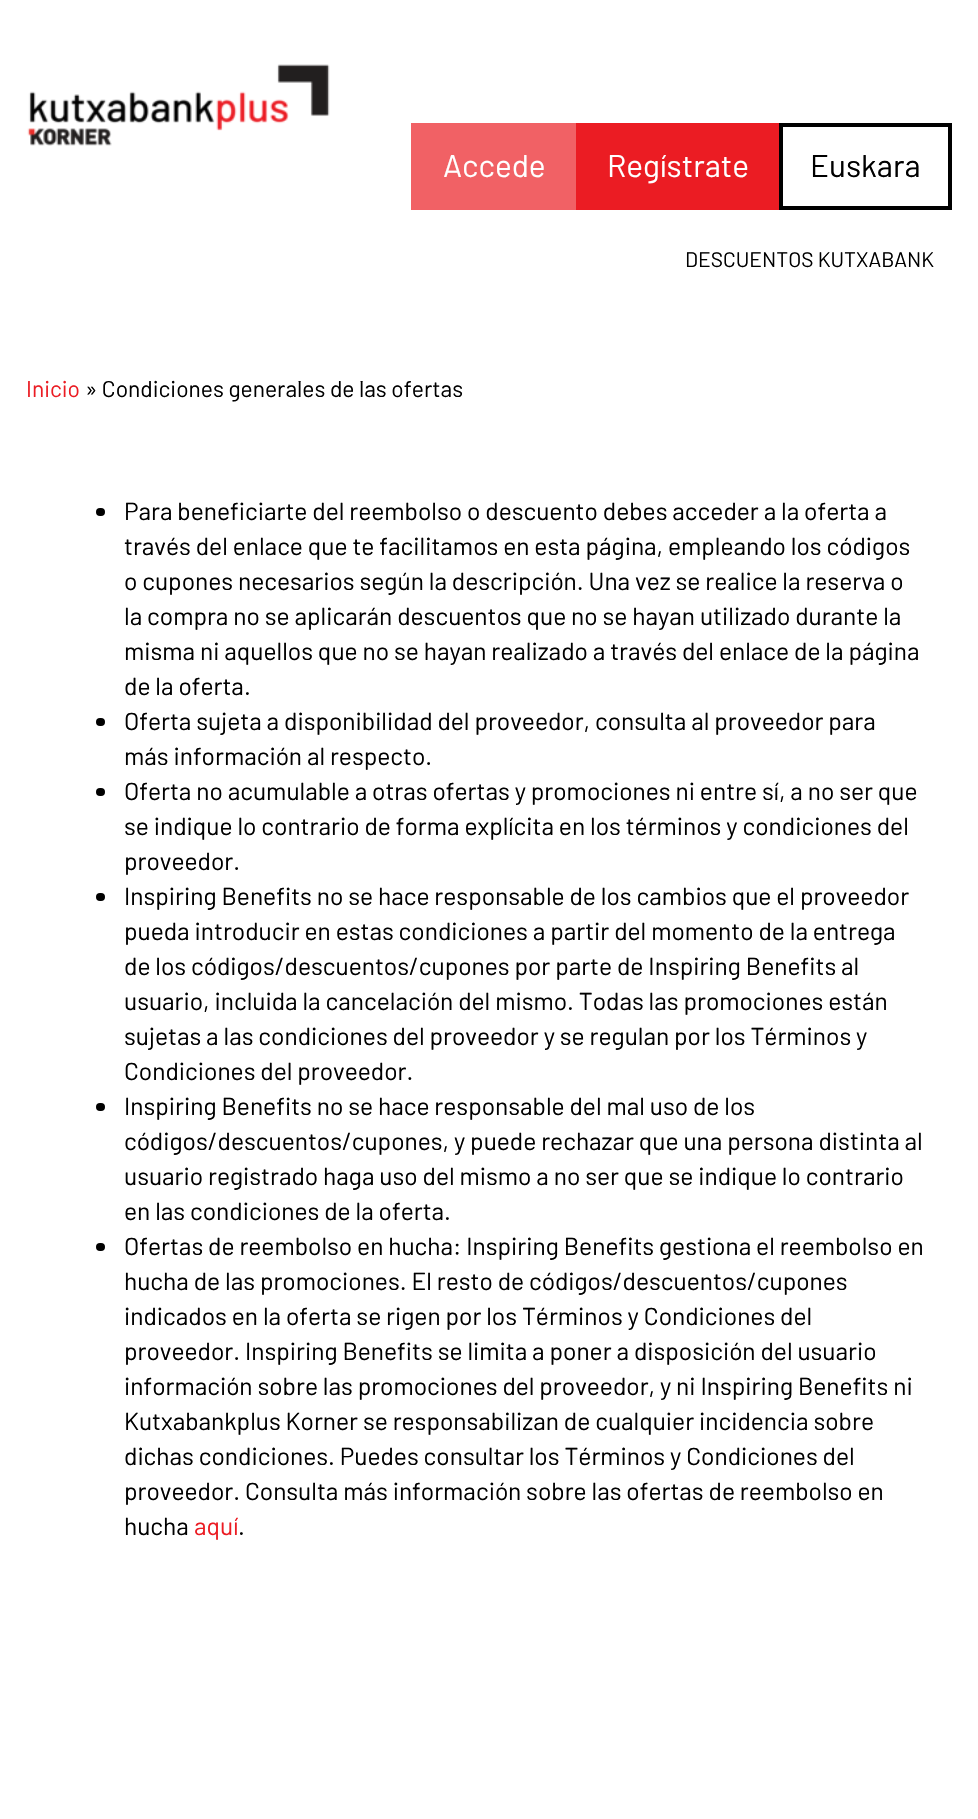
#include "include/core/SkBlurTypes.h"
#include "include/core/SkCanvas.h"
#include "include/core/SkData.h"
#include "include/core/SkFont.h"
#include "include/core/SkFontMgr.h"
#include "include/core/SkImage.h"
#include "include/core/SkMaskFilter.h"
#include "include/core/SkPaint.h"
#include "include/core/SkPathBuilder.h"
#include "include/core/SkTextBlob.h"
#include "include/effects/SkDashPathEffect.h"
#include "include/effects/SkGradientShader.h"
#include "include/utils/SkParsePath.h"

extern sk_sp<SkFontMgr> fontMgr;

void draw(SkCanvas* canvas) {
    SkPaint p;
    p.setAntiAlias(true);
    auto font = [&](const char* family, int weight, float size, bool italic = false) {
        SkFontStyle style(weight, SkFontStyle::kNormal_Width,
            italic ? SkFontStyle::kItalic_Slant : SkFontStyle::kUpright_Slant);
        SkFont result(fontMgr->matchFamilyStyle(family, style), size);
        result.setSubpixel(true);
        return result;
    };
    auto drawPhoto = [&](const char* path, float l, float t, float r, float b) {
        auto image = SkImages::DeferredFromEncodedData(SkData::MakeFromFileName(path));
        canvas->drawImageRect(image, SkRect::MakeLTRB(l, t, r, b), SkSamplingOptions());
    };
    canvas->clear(0xFFFFFFFF);
    drawPhoto("media/1.png", 27, 64, 330, 146);
    p.setColor(0xFFF16165);
    canvas->drawRect(SkRect::MakeLTRB(411, 123, 576, 210), p);
    auto font1 = font("Barlow", 400, 31.5f);
    p.setColor(0xFFFFFFFF);
    canvas->drawString("Accede", 443, 177, font1, p);
    p.setColor(0xFFEB1C23);
    canvas->drawRect(SkRect::MakeLTRB(576, 123, 779, 210), p);
    p.setColor(0xFFFFFFFF);
    canvas->drawString("Regístrate", 607, 177, font1, p);
    p.setStyle(SkPaint::kStroke_Style);
    p.setStrokeWidth(4);
    p.setColor(0xFF000000);
    canvas->drawRect(SkRect::MakeLTRB(781, 125, 950, 208), p);
    p.setStyle(SkPaint::kFill_Style);
    canvas->drawString("Euskara", 810, 177, font1, p);
    auto font2 = font("Barlow", 400, 21);
    canvas->drawString("DESCUENTOS KUTXABANK", 685, 267, font2, p);
    auto font3 = font("Barlow", 400, 22.75f);
    p.setColor(0xFFEB1C23);
    canvas->drawString("Inicio", 26, 397, font3, p);
    p.setColor(0xFF000000);
    canvas->drawString("» Condiciones generales de las ofertas", 85, 397, font3, p);
    canvas->drawRoundRect(SkRect::MakeLTRB(96, 508, 105, 516), 4, 4, p);
    auto font4 = font("Barlow", 400, 24.5f);
    {
        const struct { const char* s; float x, y; } items[] = {
            {"Para beneficiarte del reembolso o descuento debes acceder a la oferta a", 124, 520},
            {"través del enlace que te facilitamos en esta página, empleando los códigos", 124, 555},
            {"o cupones necesarios según la descripción. Una vez se realice la reserva o", 124, 590},
            {"la compra no se aplicarán descuentos que no se hayan utilizado durante la", 124, 625},
            {"misma ni aquellos que no se hayan realizado a través del enlace de la página", 124, 660},
            {"de la oferta.", 124, 695},
        };
        for (auto [s, x, y] : items) {
            canvas->drawString(s, x, y, font4, p);
        }
    }
    canvas->drawRoundRect(SkRect::MakeLTRB(96, 718, 105, 726), 4, 4, p);
    canvas->drawString("Oferta sujeta a disponibilidad del proveedor, consulta al proveedor para", 124, 730, font4, p);
    canvas->drawString("más información al respecto.", 124, 765, font4, p);
    canvas->drawRoundRect(SkRect::MakeLTRB(96, 788, 105, 796), 4, 4, p);
    {
        const struct { const char* s; float x, y; } items[] = {
            {"Oferta no acumulable a otras ofertas y promociones ni entre sí, a no ser que", 124, 800},
            {"se indique lo contrario de forma explícita en los términos y condiciones del", 124, 835},
            {"proveedor.", 124, 870},
        };
        for (auto [s, x, y] : items) {
            canvas->drawString(s, x, y, font4, p);
        }
    }
    canvas->drawRoundRect(SkRect::MakeLTRB(96, 893, 105, 901), 4, 4, p);
    {
        const struct { const char* s; float x, y; } items[] = {
            {"Inspiring Benefits no se hace responsable de los cambios que el proveedor", 124, 905},
            {"pueda introducir en estas condiciones a partir del momento de la entrega", 124, 940},
            {"de los códigos/descuentos/cupones por parte de Inspiring Benefits al", 124, 975},
            {"usuario, incluida la cancelación del mismo. Todas las promociones están", 124, 1010},
            {"sujetas a las condiciones del proveedor y se regulan por los Términos y", 124, 1045},
            {"Condiciones del proveedor.", 124, 1080},
        };
        for (auto [s, x, y] : items) {
            canvas->drawString(s, x, y, font4, p);
        }
    }
    canvas->drawRoundRect(SkRect::MakeLTRB(96, 1103, 105, 1111), 4, 4, p);
    {
        const struct { const char* s; float x, y; } items[] = {
            {"Inspiring Benefits no se hace responsable del mal uso de los", 124, 1115},
            {"códigos/descuentos/cupones, y puede rechazar que una persona distinta al", 124, 1150},
            {"usuario registrado haga uso del mismo a no ser que se indique lo contrario", 124, 1185},
            {"en las condiciones de la oferta.", 124, 1220},
        };
        for (auto [s, x, y] : items) {
            canvas->drawString(s, x, y, font4, p);
        }
    }
    canvas->drawRoundRect(SkRect::MakeLTRB(96, 1243, 105, 1251), 4, 4, p);
    {
        const struct { const char* s; float x, y; } items[] = {
            {"Ofertas de reembolso en hucha: Inspiring Benefits gestiona el reembolso en", 124, 1255},
            {"hucha de las promociones. El resto de códigos/descuentos/cupones", 124, 1290},
            {"indicados en la oferta se rigen por los Términos y Condiciones del", 124, 1325},
            {"proveedor. Inspiring Benefits se limita a poner a disposición del usuario", 124, 1360},
            {"información sobre las promociones del proveedor, y ni Inspiring Benefits ni", 124, 1395},
            {"Kutxabankplus Korner se responsabilizan de cualquier incidencia sobre", 124, 1430},
            {"dichas condiciones. Puedes consultar los Términos y Condiciones del", 124, 1465},
            {"proveedor. Consulta más información sobre las ofertas de reembolso en", 124, 1500},
            {"hucha", 124, 1535},
        };
        for (auto [s, x, y] : items) {
            canvas->drawString(s, x, y, font4, p);
        }
    }
    p.setColor(0xFFEB1C23);
    canvas->drawString("aquí", 194, 1535, font4, p);
    p.setColor(0xFF000000);
    canvas->drawString(".", 238, 1535, font4, p);
}
